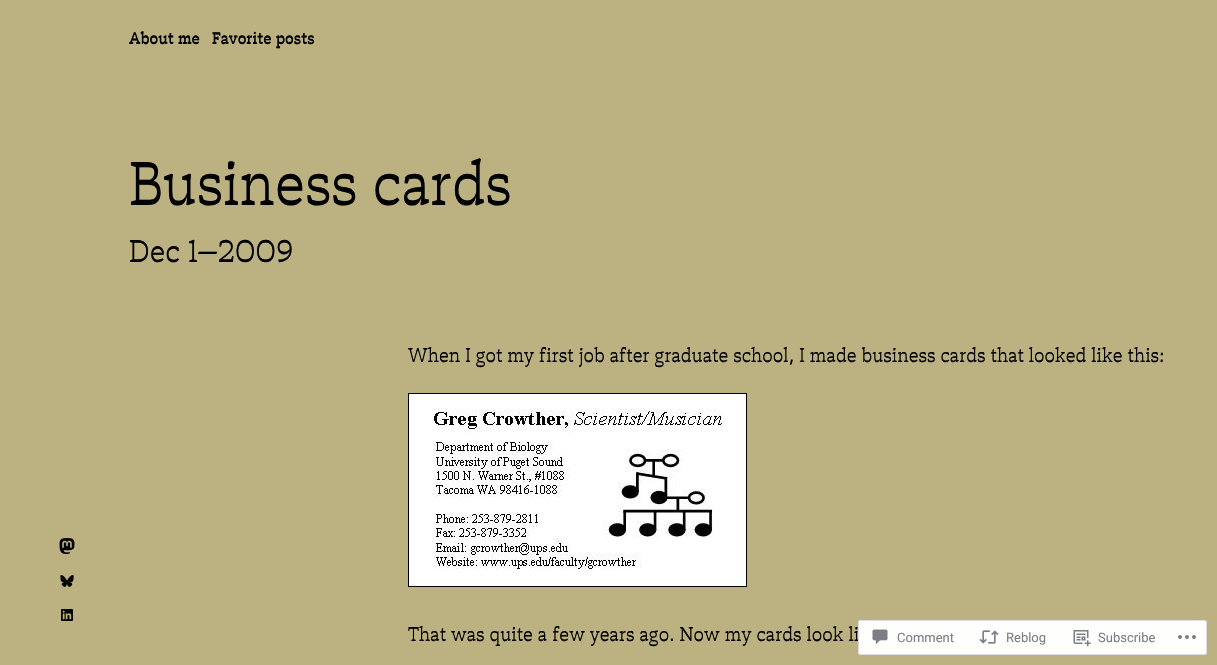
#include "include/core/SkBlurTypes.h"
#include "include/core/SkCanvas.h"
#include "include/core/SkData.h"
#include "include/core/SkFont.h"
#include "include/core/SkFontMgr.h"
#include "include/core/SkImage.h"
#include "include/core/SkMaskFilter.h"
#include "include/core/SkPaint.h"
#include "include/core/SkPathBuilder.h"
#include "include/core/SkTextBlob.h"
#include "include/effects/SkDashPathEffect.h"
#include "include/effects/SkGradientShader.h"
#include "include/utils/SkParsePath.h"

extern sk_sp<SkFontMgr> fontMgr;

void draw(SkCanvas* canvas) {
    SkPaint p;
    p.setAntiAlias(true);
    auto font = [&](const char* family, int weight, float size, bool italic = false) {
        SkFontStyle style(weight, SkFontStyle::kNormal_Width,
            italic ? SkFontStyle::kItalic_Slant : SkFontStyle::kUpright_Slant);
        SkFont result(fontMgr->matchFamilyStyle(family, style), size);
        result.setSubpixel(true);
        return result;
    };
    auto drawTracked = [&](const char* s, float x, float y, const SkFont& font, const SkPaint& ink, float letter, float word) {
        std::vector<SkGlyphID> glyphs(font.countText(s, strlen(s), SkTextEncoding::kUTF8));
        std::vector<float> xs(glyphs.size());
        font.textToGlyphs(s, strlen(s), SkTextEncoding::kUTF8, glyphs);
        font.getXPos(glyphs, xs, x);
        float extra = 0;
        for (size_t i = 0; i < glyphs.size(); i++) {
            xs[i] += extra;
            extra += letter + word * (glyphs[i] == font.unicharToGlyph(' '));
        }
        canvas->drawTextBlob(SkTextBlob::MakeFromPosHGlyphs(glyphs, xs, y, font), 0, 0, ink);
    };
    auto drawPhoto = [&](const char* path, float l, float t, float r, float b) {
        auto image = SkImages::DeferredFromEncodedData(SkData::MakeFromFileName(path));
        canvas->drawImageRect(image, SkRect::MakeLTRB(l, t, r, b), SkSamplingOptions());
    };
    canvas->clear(0xFFBBB181);
    drawPhoto("media/1.png", 59, 538, 75, 554);
    drawPhoto("media/2.png", 60, 575, 74, 587);
    drawPhoto("media/3.png", 61, 609, 73, 621);
    auto font1 = font("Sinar", 700, 16.75f);
    p.setColor(0xFF000000);
    canvas->drawString("About me", 129, 44, font1, p);
    canvas->drawString("Favorite posts", 212, 44, font1, p);
    auto font2 = font("Sinar", 400, 61.5f);
    drawTracked("Business cards", 129, 205, font2, p, -0.2f, 0);
    auto font3 = font("Sinar", 400, 31.25f);
    canvas->drawString("Dec 1—2009", 129, 262, font3, p);
    auto font4 = font("Sinar", 400, 19.85f);
    canvas->drawString("When I got my first job after graduate school, I made business cards that looked like this:", 408, 362, font4, p);
    p.setStyle(SkPaint::kStroke_Style);
    p.setStrokeWidth(1);
    canvas->drawRect(SkRect::MakeLTRB(408.5f, 393.5f, 746.5f, 586.5f), p);
    drawPhoto("media/4.png", 409, 394, 746, 586);
    p.setStyle(SkPaint::kFill_Style);
    canvas->drawString("That was quite a few years ago. Now my cards look li", 408, 641, font4, p);
    p.setColor(0xFAFFFFFF);
    canvas->drawRoundRect(SkRect::MakeLTRB(858, 620, 1207, 655), 3, 3, p);
    p.setStyle(SkPaint::kStroke_Style);
    p.setColor(0xFADCDCDE);
    canvas->drawRoundRect(SkRect::MakeLTRB(858.5f, 620.5f, 1206.5f, 654.5f), 2.5f, 2.5f, p);
    drawPhoto("media/5.png", 872, 629, 888, 645);
    auto font5 = font("Roboto", 400, 13);
    p.setStyle(SkPaint::kFill_Style);
    p.setColor(0xFF7B7F84);
    canvas->drawString("Comment", 897, 642, font5, p);
    drawPhoto("media/6.png", 979, 630, 999, 644);
    canvas->drawString("Reblog", 1006, 642, font5, p);
    drawPhoto("media/7.png", 1073, 630, 1091, 647);
    canvas->drawString("Subscribe", 1098, 642, font5, p);
    drawPhoto("media/8.png", 1178, 635, 1196, 639);
}
